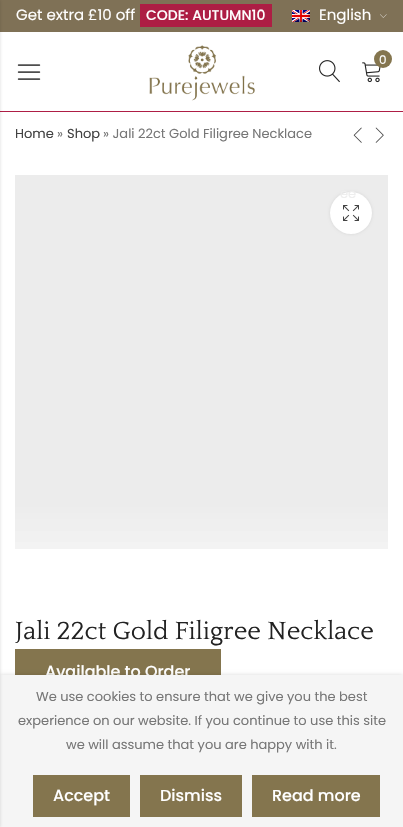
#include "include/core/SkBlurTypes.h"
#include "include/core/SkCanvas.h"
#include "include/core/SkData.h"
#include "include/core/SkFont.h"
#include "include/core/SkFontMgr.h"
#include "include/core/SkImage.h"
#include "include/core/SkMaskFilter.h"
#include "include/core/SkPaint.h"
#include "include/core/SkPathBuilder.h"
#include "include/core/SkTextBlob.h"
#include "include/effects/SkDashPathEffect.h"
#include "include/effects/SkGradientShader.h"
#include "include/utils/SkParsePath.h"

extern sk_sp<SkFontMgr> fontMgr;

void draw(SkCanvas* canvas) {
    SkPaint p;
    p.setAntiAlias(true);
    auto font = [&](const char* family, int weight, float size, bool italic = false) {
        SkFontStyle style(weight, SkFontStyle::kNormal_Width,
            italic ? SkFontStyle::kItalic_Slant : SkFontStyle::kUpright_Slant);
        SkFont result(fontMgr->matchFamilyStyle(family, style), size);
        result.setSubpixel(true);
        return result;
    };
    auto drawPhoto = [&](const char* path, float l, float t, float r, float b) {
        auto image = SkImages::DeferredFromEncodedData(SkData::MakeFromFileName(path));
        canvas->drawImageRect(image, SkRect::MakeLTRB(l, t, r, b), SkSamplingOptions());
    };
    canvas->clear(0xFFFFFFFF);
    {
        const struct { float l, t, r, b; SkColor color; } items[] = {
            {0, 0, 403, 32, 0xFF7F7156},
            {0, 111, 403, 112, 0xFFAE1E45},
            {15, 649, 221, 675, 0xFF84754E},
        };
        for (auto [l, t, r, b, color] : items) {
            p.setColor(color);
            canvas->drawRect(SkRect::MakeLTRB(l, t, r, b), p);
        }
    }
    auto font1 = font("Poppins", 500, 16);
    p.setColor(0xFFFFFFFF);
    canvas->drawString("Available to Order", 45, 677, font1, p);
    p.setColor(0x26000000);
    p.setMaskFilter(SkMaskFilter::MakeBlur(kNormal_SkBlurStyle, 2));
    canvas->drawRect(SkRect::MakeLTRB(0, 675, 403, 827), p);
    p.setMaskFilter(nullptr);
    p.setColor(0xFFF5F5F5);
    canvas->drawRect(SkRect::MakeLTRB(0, 675, 403, 827), p);
    p.setColor(0x26000000);
    p.setMaskFilter(SkMaskFilter::MakeBlur(kNormal_SkBlurStyle, 1.5f));
    canvas->drawRect(SkRect::MakeLTRB(-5, 0, 0, 827), p);
    p.setMaskFilter(nullptr);
    auto font2 = font("Poppins", 400, 15);
    p.setColor(0xFFFFFFFF);
    canvas->drawString("Get extra £10 off", 16, 20, font2, p);
    p.setColor(0xFFAD1E44);
    canvas->drawRect(SkRect::MakeLTRB(140, 4, 272, 27), p);
    auto font3 = font("Poppins", 500, 14);
    p.setColor(0xFFFFFFFF);
    canvas->drawString("CODE: AUTUMN10", 146, 20, font3, p);
    drawPhoto("media/1.png", 292, 10, 310, 22);
    canvas->drawString("English", 319, 20, font2, p);
    drawPhoto("media/2.png", 380, 14, 387, 18);
    drawPhoto("media/3.png", 149, 45, 255, 101);
    drawPhoto("media/4.png", 319, 60, 340, 83);
    drawPhoto("media/5.png", 362, 62, 381, 83);
    p.setColor(0xFF84754E);
    canvas->drawCircle(383, 59, 9, p);
    auto font4 = font("Poppins", 400, 12);
    p.setColor(0xFFFFFFFF);
    canvas->drawString("0", 379, 64, font4, p);
    drawPhoto("media/6.png", 17, 64, 41, 80);
    auto font5 = font("Poppins", 400, 13);
    p.setColor(0xFF424242);
    canvas->drawString("Home", 15, 138, font5, p);
    p.setColor(0xFF777777);
    canvas->drawString("»", 57, 138, font5, p);
    p.setColor(0xFF424242);
    canvas->drawString("Shop", 67, 138, font5, p);
    p.setColor(0xFF777777);
    canvas->drawString("» Jali 22ct Gold Filigree Necklace", 103, 138, font5, p);
    drawPhoto("media/7.png", 375, 127, 384, 143);
    drawPhoto("media/8.png", 353, 127, 362, 143);
    p.setColor(0xFFFAFAFA);
    canvas->drawRect(SkRect::MakeLTRB(15, 176, 388, 549), p);
    drawPhoto("media/9.png", 15, 175, 388, 549);
    p.setColor(0x1A000000);
    p.setMaskFilter(SkMaskFilter::MakeBlur(kNormal_SkBlurStyle, 1.5f));
    canvas->drawRoundRect(SkRect::MakeLTRB(330, 192, 372, 234), 21, 21, p);
    p.setMaskFilter(nullptr);
    p.setColor(0xFFFFFFFF);
    canvas->drawCircle(351, 213, 21, p);
    p.setColor(0xFFEEEEEE);
    canvas->drawString("ee", 340, 198, font5, p);
    drawPhoto("media/10.png", 343, 205, 359, 221);
    auto font6 = font("Quattrocento", 400, 26);
    p.setColor(0xFF222222);
    canvas->drawString("Jali 22ct Gold Filigree Necklace", 15, 639, font6, p);
    p.setColor(0xFF777777);
    {
        const struct { const char* s; float x, y; } items[] = {
            {"We use cookies to ensure that we give you the best", 36, 701},
            {"experience on our website. If you continue to use this site", 18, 725},
            {"we will assume that you are happy with it.", 66, 749},
        };
        for (auto [s, x, y] : items) {
            canvas->drawString(s, x, y, font5, p);
        }
    }
    p.setColor(0xFF84754E);
    canvas->drawRect(SkRect::MakeLTRB(33, 775, 130, 817), p);
    p.setColor(0xFFFFFFFF);
    canvas->drawString("Accept", 53, 801, font1, p);
    p.setColor(0xFF84754E);
    canvas->drawRect(SkRect::MakeLTRB(140, 775, 242, 817), p);
    p.setColor(0xFFFFFFFF);
    canvas->drawString("Dismiss", 160, 801, font1, p);
    p.setColor(0xFF84754E);
    canvas->drawRect(SkRect::MakeLTRB(252, 775, 380, 817), p);
    p.setColor(0xFFFFFFFF);
    canvas->drawString("Read more", 272, 801, font1, p);
}
